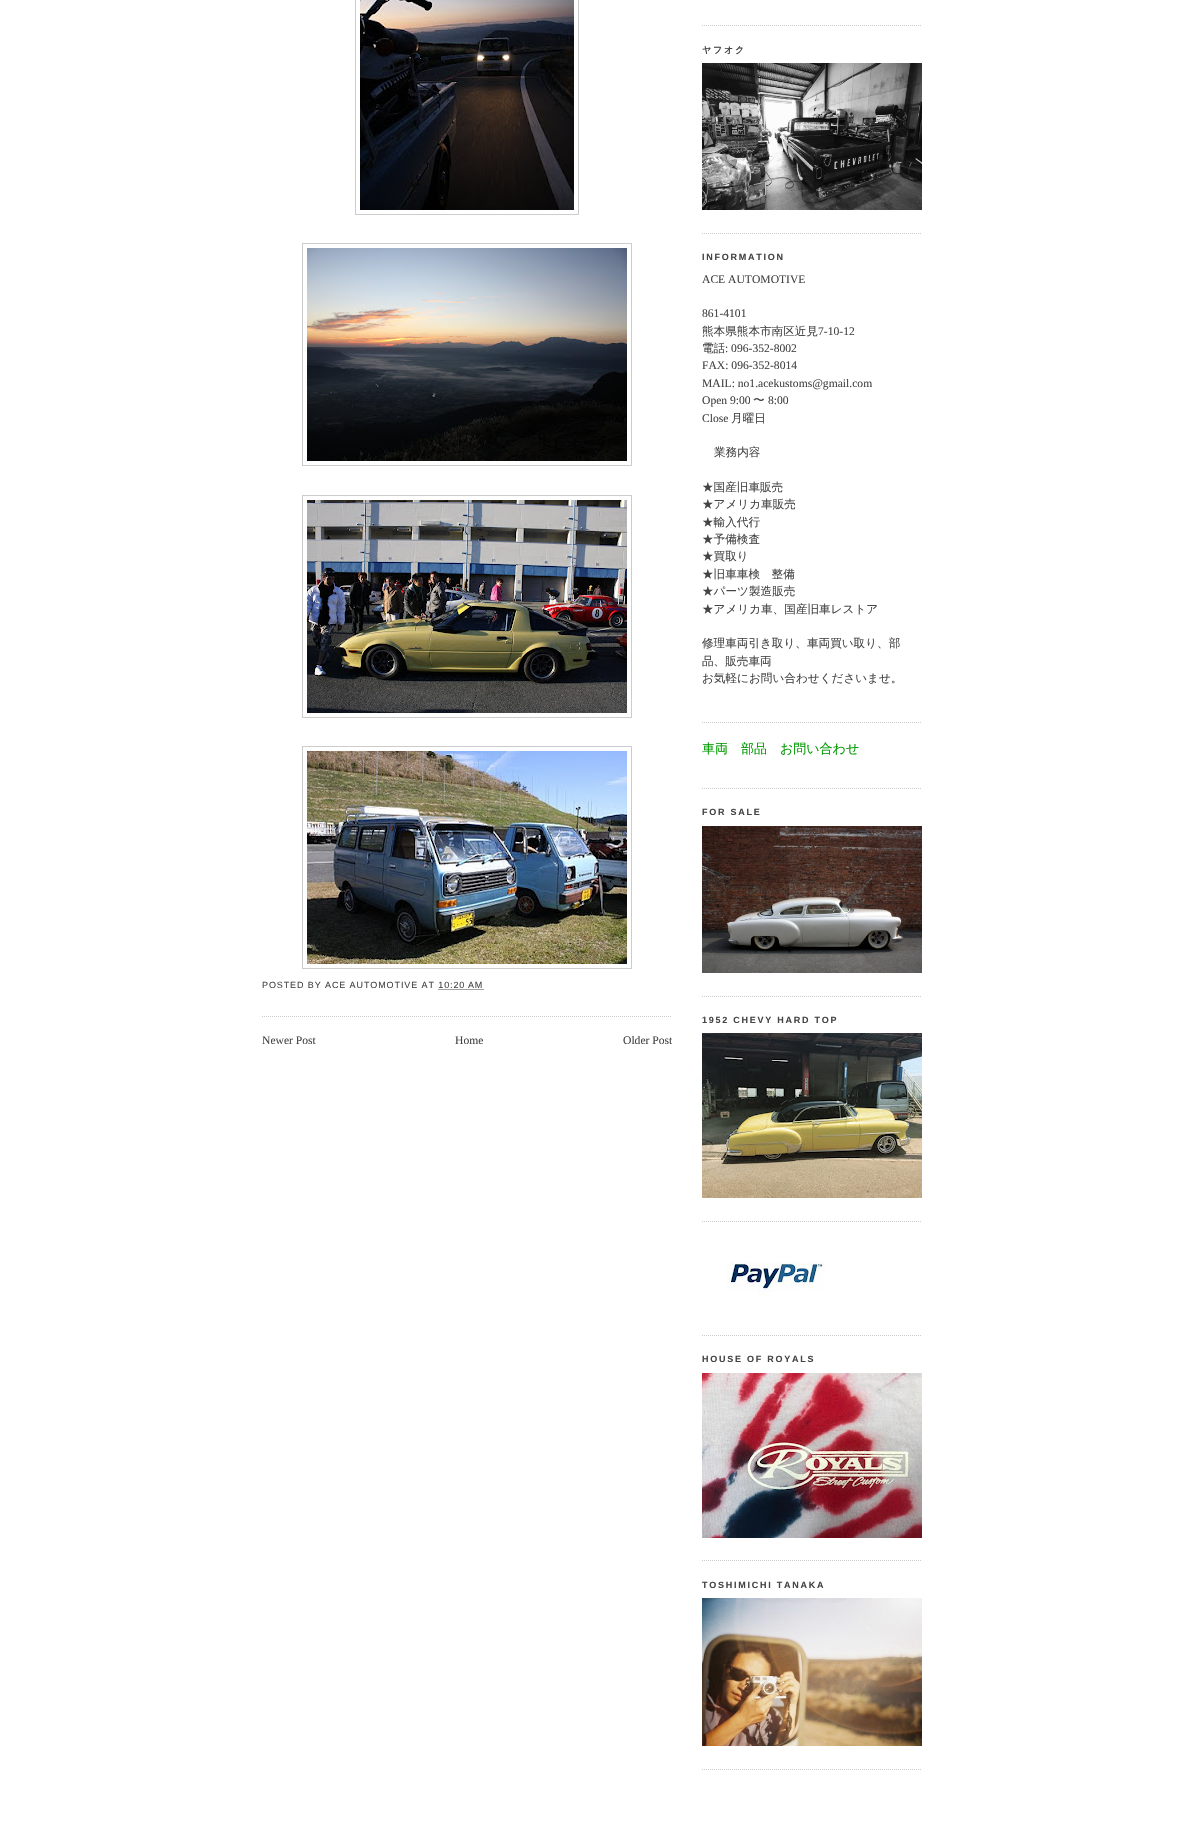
#include "include/core/SkBlurTypes.h"
#include "include/core/SkCanvas.h"
#include "include/core/SkData.h"
#include "include/core/SkFont.h"
#include "include/core/SkFontMgr.h"
#include "include/core/SkImage.h"
#include "include/core/SkMaskFilter.h"
#include "include/core/SkPaint.h"
#include "include/core/SkPathBuilder.h"
#include "include/core/SkTextBlob.h"
#include "include/effects/SkDashPathEffect.h"
#include "include/effects/SkGradientShader.h"
#include "include/utils/SkParsePath.h"

extern sk_sp<SkFontMgr> fontMgr;

void draw(SkCanvas* canvas) {
    SkPaint p;
    p.setAntiAlias(true);
    auto font = [&](const char* family, int weight, float size, bool italic = false) {
        SkFontStyle style(weight, SkFontStyle::kNormal_Width,
            italic ? SkFontStyle::kItalic_Slant : SkFontStyle::kUpright_Slant);
        SkFont result(fontMgr->matchFamilyStyle(family, style), size);
        result.setSubpixel(true);
        return result;
    };
    auto drawTracked = [&](const char* s, float x, float y, const SkFont& font, const SkPaint& ink, float letter, float word) {
        std::vector<SkGlyphID> glyphs(font.countText(s, strlen(s), SkTextEncoding::kUTF8));
        std::vector<float> xs(glyphs.size());
        font.textToGlyphs(s, strlen(s), SkTextEncoding::kUTF8, glyphs);
        font.getXPos(glyphs, xs, x);
        float extra = 0;
        for (size_t i = 0; i < glyphs.size(); i++) {
            xs[i] += extra;
            extra += letter + word * (glyphs[i] == font.unicharToGlyph(' '));
        }
        canvas->drawTextBlob(SkTextBlob::MakeFromPosHGlyphs(glyphs, xs, y, font), 0, 0, ink);
    };
    auto drawPhoto = [&](const char* path, float l, float t, float r, float b) {
        auto image = SkImages::DeferredFromEncodedData(SkData::MakeFromFileName(path));
        canvas->drawImageRect(image, SkRect::MakeLTRB(l, t, r, b), SkSamplingOptions());
    };
    canvas->clear(0xFFFFFFFF);
    p.setStyle(SkPaint::kStroke_Style);
    p.setStrokeWidth(1);
    p.setColor(0xFFCCCCCC);
    p.setPathEffect(SkDashPathEffect::Make({{1, 1}}, 0));
    canvas->drawPath(SkPathBuilder().moveTo(262, 1016.5f).lineTo(672, 1016.5f).detach(), p);
    p.setPathEffect(nullptr);
    canvas->drawRect(SkRect::MakeLTRB(355.5f, -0.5f, 578.5f, 214.5f), p);
    drawPhoto("media/1.png", 360, 0, 574, 210);
    canvas->drawRect(SkRect::MakeLTRB(302.5f, 243.5f, 631.5f, 465.5f), p);
    drawPhoto("media/2.png", 307, 248, 627, 461);
    canvas->drawRect(SkRect::MakeLTRB(302.5f, 495.5f, 631.5f, 717.5f), p);
    drawPhoto("media/3.png", 307, 500, 627, 713);
    canvas->drawRect(SkRect::MakeLTRB(302.5f, 746.5f, 631.5f, 968.5f), p);
    drawPhoto("media/4.png", 307, 751, 627, 964);
    auto font1 = font("Liberation Sans", 400, 9);
    p.setStyle(SkPaint::kFill_Style);
    p.setColor(0xFF444444);
    drawTracked("POSTED BY ACE AUTOMOTIVE AT 10:20 AM", 262, 988, font1, p, 0.9f, 0);
    p.setStyle(SkPaint::kStroke_Style);
    p.setPathEffect(SkDashPathEffect::Make({{1, 1}}, 0));
    canvas->drawPath(SkPathBuilder().moveTo(438.5f, 989.5f).lineTo(483.5f, 989.5f).detach(), p);
    p.setPathEffect(nullptr);
    auto font2 = font("Liberation Serif", 400, 11.6f);
    p.setStyle(SkPaint::kFill_Style);
    {
        const struct { const char* s; float x, y; } items[] = {
            {"Newer Post", 262, 1044},
            {"Home", 455, 1044},
            {"Older Post", 623, 1044},
        };
        for (auto [s, x, y] : items) {
            canvas->drawString(s, x, y, font2, p);
        }
    }
    p.setStyle(SkPaint::kStroke_Style);
    p.setColor(0xFFCCCCCC);
    p.setPathEffect(SkDashPathEffect::Make({{1, 1}}, 0));
    canvas->drawPath(SkPathBuilder().moveTo(702, 25.5f).lineTo(922, 25.5f).detach(), p);
    p.setPathEffect(nullptr);
    p.setPathEffect(SkDashPathEffect::Make({{1, 1}}, 0));
    canvas->drawPath(SkPathBuilder().moveTo(702, 233.5f).lineTo(922, 233.5f).detach(), p);
    p.setPathEffect(nullptr);
    auto font3 = font("WenQuanYi Zen Hei", 700, 9);
    p.setStyle(SkPaint::kFill_Style);
    p.setColor(0xFF444444);
    drawTracked("ヤフオク", 702, 53, font3, p, 1.75f, 0);
    drawPhoto("media/5.png", 702, 63, 922, 210);
    p.setStyle(SkPaint::kStroke_Style);
    p.setColor(0xFFCCCCCC);
    p.setPathEffect(SkDashPathEffect::Make({{1, 1}}, 0));
    canvas->drawPath(SkPathBuilder().moveTo(702, 722.5f).lineTo(922, 722.5f).detach(), p);
    p.setPathEffect(nullptr);
    auto font4 = font("Liberation Sans", 700, 9);
    p.setStyle(SkPaint::kFill_Style);
    p.setColor(0xFF444444);
    drawTracked("INFORMATION", 702, 260, font4, p, 1.75f, 0);
    canvas->drawString("ACE AUTOMOTIVE", 702, 283, font2, p);
    canvas->drawString("861-4101", 702, 317, font2, p);
    auto font5 = font("WenQuanYi Zen Hei", 500, 11.6f);
    canvas->drawString("熊本県熊本市南区近見", 702, 335, font5, p);
    canvas->drawString("7-10-12", 818, 335, font2, p);
    canvas->drawString("電話", 702, 352, font5, p);
    {
        const struct { const char* s; float x, y; } items[] = {
            {": 096-352-8002", 725, 352},
            {"FAX: 096-352-8014", 702, 369},
            {"MAIL: no1.acekustoms@gmail.com", 702, 387},
            {"Open 9:00", 702, 404},
        };
        for (auto [s, x, y] : items) {
            canvas->drawString(s, x, y, font2, p);
        }
    }
    canvas->drawString("〜", 753, 404, font5, p);
    canvas->drawString("8:00", 768, 404, font2, p);
    canvas->drawString("Close", 702, 422, font2, p);
    {
        const struct { const char* s; float x, y; } items[] = {
            {"月曜日", 731, 422},
            {"業務内容", 714, 456},
            {"★国産旧車販売", 702, 491},
            {"★アメリカ車販売", 702, 508},
            {"★輸入代行", 702, 526},
            {"★予備検査", 702, 543},
            {"★買取り", 702, 560},
            {"★旧車車検　整備", 702, 578},
            {"★パーツ製造販売", 702, 595},
            {"★アメリカ車、国産旧車レストア", 702, 613},
            {"修理車両引き取り、車両買い取り、部", 702, 647},
            {"品、販売車両", 702, 665},
            {"お気軽にお問い合わせくださいませ。", 702, 682},
        };
        for (auto [s, x, y] : items) {
            canvas->drawString(s, x, y, font5, p);
        }
    }
    p.setStyle(SkPaint::kStroke_Style);
    p.setColor(0xFFCCCCCC);
    p.setPathEffect(SkDashPathEffect::Make({{1, 1}}, 0));
    canvas->drawPath(SkPathBuilder().moveTo(702, 788.5f).lineTo(922, 788.5f).detach(), p);
    p.setPathEffect(nullptr);
    auto font6 = font("WenQuanYi Zen Hei", 500, 13);
    p.setStyle(SkPaint::kFill_Style);
    p.setColor(0xFF009900);
    canvas->drawString("車両　部品　お問い合わせ", 702, 753, font6, p);
    p.setStyle(SkPaint::kStroke_Style);
    p.setColor(0xFFCCCCCC);
    p.setPathEffect(SkDashPathEffect::Make({{1, 1}}, 0));
    canvas->drawPath(SkPathBuilder().moveTo(702, 996.5f).lineTo(922, 996.5f).detach(), p);
    p.setPathEffect(nullptr);
    p.setStyle(SkPaint::kFill_Style);
    p.setColor(0xFF444444);
    drawTracked("FOR SALE", 702, 815, font4, p, 1.75f, 0);
    drawPhoto("media/6.png", 702, 826, 922, 973);
    p.setStyle(SkPaint::kStroke_Style);
    p.setColor(0xFFCCCCCC);
    p.setPathEffect(SkDashPathEffect::Make({{1, 1}}, 0));
    canvas->drawPath(SkPathBuilder().moveTo(702, 1221.5f).lineTo(922, 1221.5f).detach(), p);
    p.setPathEffect(nullptr);
    p.setStyle(SkPaint::kFill_Style);
    p.setColor(0xFF444444);
    drawTracked("1952 CHEVY HARD TOP", 702, 1023, font4, p, 1.75f, 0);
    drawPhoto("media/7.png", 702, 1033, 922, 1198);
    p.setStyle(SkPaint::kStroke_Style);
    p.setColor(0xFFCCCCCC);
    p.setPathEffect(SkDashPathEffect::Make({{1, 1}}, 0));
    canvas->drawPath(SkPathBuilder().moveTo(702, 1335.5f).lineTo(922, 1335.5f).detach(), p);
    p.setPathEffect(nullptr);
    drawPhoto("media/8.png", 726, 1261, 825, 1295);
    p.setPathEffect(SkDashPathEffect::Make({{1, 1}}, 0));
    canvas->drawPath(SkPathBuilder().moveTo(702, 1560.5f).lineTo(922, 1560.5f).detach(), p);
    p.setPathEffect(nullptr);
    p.setStyle(SkPaint::kFill_Style);
    p.setColor(0xFF444444);
    drawTracked("HOUSE OF ROYALS", 702, 1362, font4, p, 1.75f, 0);
    drawPhoto("media/9.png", 702, 1373, 922, 1538);
    p.setStyle(SkPaint::kStroke_Style);
    p.setColor(0xFFCCCCCC);
    p.setPathEffect(SkDashPathEffect::Make({{1, 1}}, 0));
    canvas->drawPath(SkPathBuilder().moveTo(702, 1769.5f).lineTo(922, 1769.5f).detach(), p);
    p.setPathEffect(nullptr);
    p.setStyle(SkPaint::kFill_Style);
    p.setColor(0xFF444444);
    drawTracked("TOSHIMICHI TANAKA", 702, 1588, font4, p, 1.75f, 0);
    drawPhoto("media/10.png", 702, 1598, 922, 1746);
}
